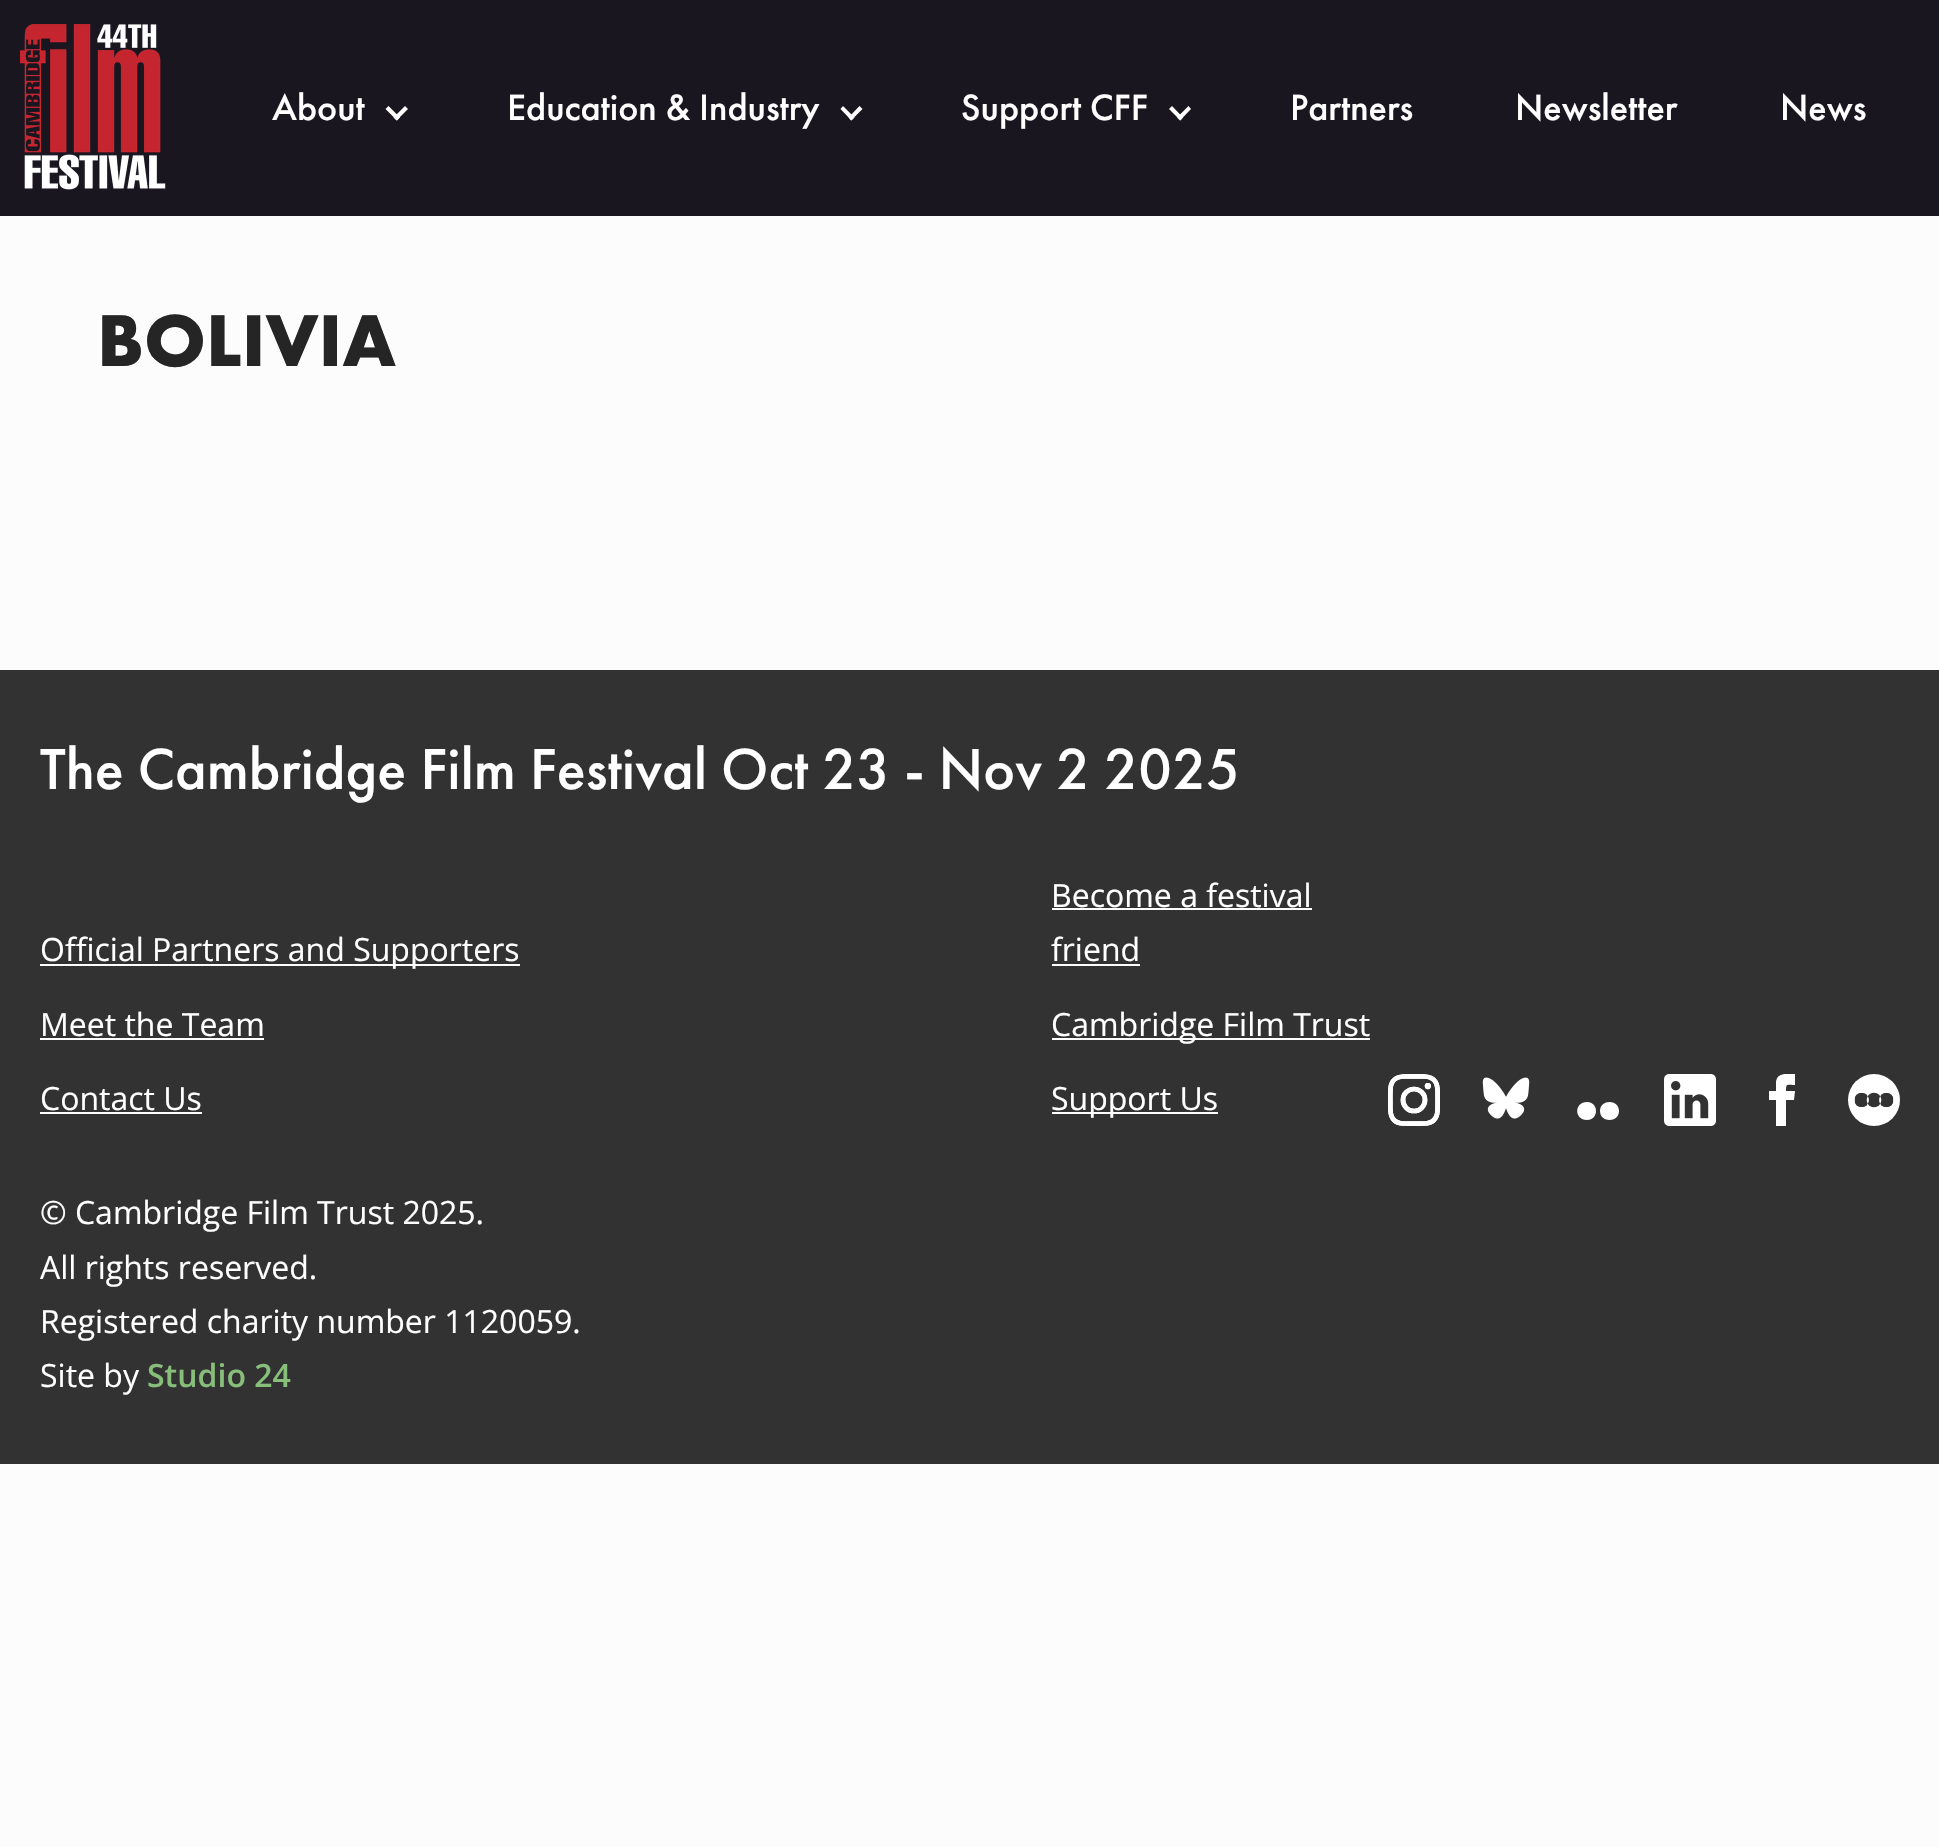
#include "include/core/SkBlurTypes.h"
#include "include/core/SkCanvas.h"
#include "include/core/SkData.h"
#include "include/core/SkFont.h"
#include "include/core/SkFontMgr.h"
#include "include/core/SkImage.h"
#include "include/core/SkMaskFilter.h"
#include "include/core/SkPaint.h"
#include "include/core/SkPathBuilder.h"
#include "include/core/SkTextBlob.h"
#include "include/effects/SkDashPathEffect.h"
#include "include/effects/SkGradientShader.h"
#include "include/utils/SkParsePath.h"

extern sk_sp<SkFontMgr> fontMgr;

void draw(SkCanvas* canvas) {
    SkPaint p;
    p.setAntiAlias(true);
    auto font = [&](const char* family, int weight, float size, bool italic = false) {
        SkFontStyle style(weight, SkFontStyle::kNormal_Width,
            italic ? SkFontStyle::kItalic_Slant : SkFontStyle::kUpright_Slant);
        SkFont result(fontMgr->matchFamilyStyle(family, style), size);
        result.setSubpixel(true);
        return result;
    };
    auto drawPhoto = [&](const char* path, float l, float t, float r, float b) {
        auto image = SkImages::DeferredFromEncodedData(SkData::MakeFromFileName(path));
        canvas->drawImageRect(image, SkRect::MakeLTRB(l, t, r, b), SkSamplingOptions());
    };
    canvas->clear(0xFFFCFCFC);
    p.setColor(0xFF191620);
    canvas->drawRect(SkRect::MakeLTRB(0, 0, 1939, 216), p);
    drawPhoto("media/1.png", 20, 24, 166, 190);
    auto font1 = font("Futura PT", 500, 38);
    p.setColor(0xFFFFFFFF);
    canvas->drawString("About", 272, 120, font1, p);
    canvas->drawPath(SkPathBuilder().moveTo(388.5f, 106).lineTo(400, 117.5f).lineTo(397, 120.5f).lineTo(385.5f, 109).close().detach(), p);
    canvas->drawPath(SkPathBuilder().moveTo(393.5f, 117.5f).lineTo(405, 106).lineTo(408, 109).lineTo(396.5f, 120.5f).close().detach(), p);
    canvas->drawString("Education & Industry", 507, 120, font1, p);
    canvas->drawPath(SkPathBuilder().moveTo(843, 106).lineTo(854.5f, 117.5f).lineTo(851.5f, 120.5f).lineTo(840.5f, 109).close().detach(), p);
    canvas->drawPath(SkPathBuilder().moveTo(848.5f, 117.5f).lineTo(859.5f, 106).lineTo(862.5f, 109).lineTo(851, 120.5f).close().detach(), p);
    canvas->drawString("Support CFF", 961, 120, font1, p);
    canvas->drawPath(SkPathBuilder().moveTo(1172, 106).lineTo(1183, 117.5f).lineTo(1180.5f, 120.5f).lineTo(1169, 109).close().detach(), p);
    canvas->drawPath(SkPathBuilder().moveTo(1177, 117.5f).lineTo(1188.5f, 106).lineTo(1191, 109).lineTo(1180, 120.5f).close().detach(), p);
    {
        const struct { const char* s; float x, y; } items[] = {
            {"Partners", 1290, 120},
            {"Newsletter", 1515, 120},
            {"News", 1780, 120},
        };
        for (auto [s, x, y] : items) {
            canvas->drawString(s, x, y, font1, p);
        }
    }
    auto font2 = font("Futura PT", 700, 76);
    p.setColor(0xFF252525);
    canvas->drawString("BOLIVIA", 97, 366, font2, p);
    p.setColor(0xFF323232);
    canvas->drawRect(SkRect::MakeLTRB(0, 670, 1939, 1464), p);
    auto font3 = font("Futura PT", 500, 60);
    p.setColor(0xFFFFFFFF);
    canvas->drawString("The Cambridge Film Festival Oct 23 - Nov 2 2025", 40, 789, font3, p);
    canvas->drawRect(SkRect::MakeLTRB(40, 964, 520, 966), p);
    auto font4 = font("Open Sans", 400, 32);
    canvas->drawString("Official Partners and Supporters", 40, 961, font4, p);
    canvas->drawString("Become a festival", 1051, 907, font4, p);
    canvas->drawRect(SkRect::MakeLTRB(1052, 908, 1312, 910), p);
    canvas->drawString("friend", 1051, 961, font4, p);
    canvas->drawRect(SkRect::MakeLTRB(1052, 964, 1140, 966), p);
    canvas->drawString("Meet the Team", 40, 1036, font4, p);
    canvas->drawRect(SkRect::MakeLTRB(40, 1038, 264, 1040), p);
    canvas->drawRect(SkRect::MakeLTRB(1052, 1038, 1370, 1040), p);
    canvas->drawString("Cambridge Film Trust", 1051, 1036, font4, p);
    canvas->drawString("Contact Us", 40, 1110, font4, p);
    canvas->drawRect(SkRect::MakeLTRB(40, 1112, 202, 1114), p);
    canvas->drawRect(SkRect::MakeLTRB(1052, 1112, 1218, 1114), p);
    canvas->drawString("Support Us", 1051, 1110, font4, p);
    drawPhoto("media/2.png", 1388, 1074, 1440, 1126);
    drawPhoto("media/3.png", 1482, 1077, 1530, 1119);
    canvas->drawPath(SkPathBuilder().moveTo(1619, 1111).cubicTo(1619, 1123, 1600, 1123, 1600, 1111).cubicTo(1600, 1099, 1619, 1099, 1619, 1111).close().moveTo(1587, 1102).cubicTo(1574, 1102, 1574, 1120, 1587, 1120).cubicTo(1599, 1120, 1599, 1102, 1587, 1102).close().detach(), p);
    drawPhoto("media/4.png", 1664, 1074, 1716, 1126);
    canvas->save();
    canvas->clipRect(SkRect::MakeLTRB(1756, 1074, 1808, 1126));
    canvas->drawPath(SkPathBuilder().moveTo(1776, 1091).lineTo(1769, 1091).lineTo(1769, 1100).lineTo(1776, 1100).lineTo(1776, 1126).lineTo(1786, 1126).lineTo(1786, 1100).lineTo(1794, 1100).lineTo(1795, 1091).lineTo(1786, 1091).cubicTo(1786, 1083, 1787, 1085, 1795, 1085).lineTo(1795, 1074).cubicTo(1788, 1074, 1777, 1072, 1776, 1082).close().detach(), p);
    canvas->restore();
    drawPhoto("media/5.png", 1848, 1074, 1900, 1126);
    {
        const struct { const char* s; float x, y; } items[] = {
            {"© Cambridge Film Trust 2025.", 40, 1224},
            {"All rights reserved.", 40, 1279},
            {"Registered charity number 1120059.", 40, 1333},
            {"Site by", 40, 1387},
        };
        for (auto [s, x, y] : items) {
            canvas->drawString(s, x, y, font4, p);
        }
    }
    auto font5 = font("Open Sans", 600, 32);
    p.setColor(0xFF87BE7A);
    canvas->drawString("Studio 24", 147, 1387, font5, p);
}
